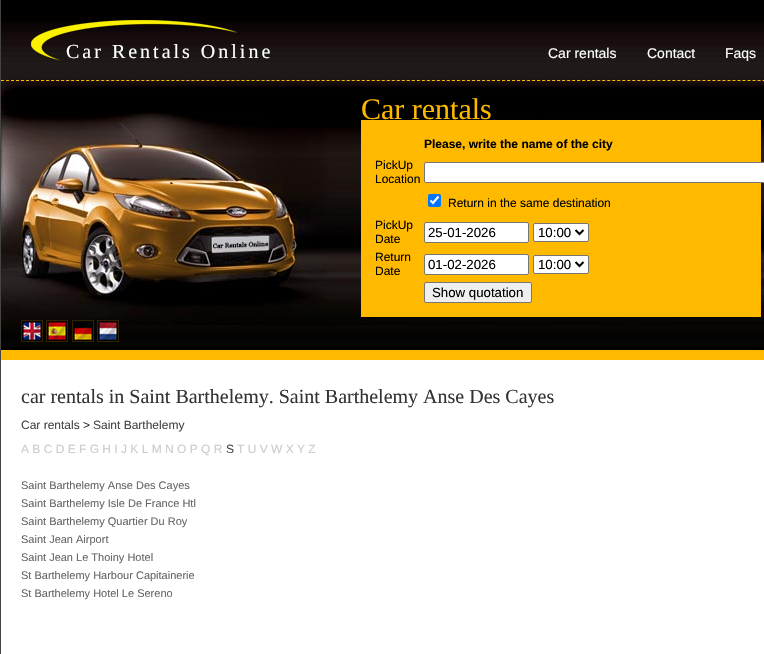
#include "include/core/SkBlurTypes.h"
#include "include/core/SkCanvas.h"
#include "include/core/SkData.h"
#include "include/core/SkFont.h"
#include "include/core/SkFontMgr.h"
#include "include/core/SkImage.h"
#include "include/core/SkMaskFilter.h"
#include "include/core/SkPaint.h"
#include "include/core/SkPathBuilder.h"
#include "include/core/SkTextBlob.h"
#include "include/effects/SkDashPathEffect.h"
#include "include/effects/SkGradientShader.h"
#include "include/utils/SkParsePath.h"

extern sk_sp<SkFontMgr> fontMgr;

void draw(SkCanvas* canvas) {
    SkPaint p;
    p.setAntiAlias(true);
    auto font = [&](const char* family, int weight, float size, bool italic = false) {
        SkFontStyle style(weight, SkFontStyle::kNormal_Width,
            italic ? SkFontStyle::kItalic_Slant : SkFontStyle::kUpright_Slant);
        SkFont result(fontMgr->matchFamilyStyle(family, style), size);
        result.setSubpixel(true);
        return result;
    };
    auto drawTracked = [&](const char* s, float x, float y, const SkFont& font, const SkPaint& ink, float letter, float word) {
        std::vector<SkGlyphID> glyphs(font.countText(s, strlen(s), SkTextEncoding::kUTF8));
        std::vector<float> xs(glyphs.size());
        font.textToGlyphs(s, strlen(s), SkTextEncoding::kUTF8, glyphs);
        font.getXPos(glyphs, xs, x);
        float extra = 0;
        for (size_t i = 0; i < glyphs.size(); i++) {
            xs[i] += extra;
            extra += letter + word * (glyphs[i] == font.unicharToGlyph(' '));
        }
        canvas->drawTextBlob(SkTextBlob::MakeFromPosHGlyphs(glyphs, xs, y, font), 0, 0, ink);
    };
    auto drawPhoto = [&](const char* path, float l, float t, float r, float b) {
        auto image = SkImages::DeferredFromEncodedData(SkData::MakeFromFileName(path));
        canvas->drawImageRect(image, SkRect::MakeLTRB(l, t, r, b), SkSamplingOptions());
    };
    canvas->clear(0xFFFFFFFF);
    p.setColor(0xFF444444);
    canvas->drawRect(SkRect::MakeLTRB(0, 0, 1, 654), p);
    drawPhoto("media/1.png", 1, 0, 764, 350);
    p.setColor(0xFFFFBA00);
    canvas->drawRect(SkRect::MakeLTRB(1, 350, 764, 360), p);
    drawPhoto("media/2.png", 31, 20, 238, 61);
    auto font1 = font("Liberation Serif", 400, 20);
    p.setColor(0xFFFFFFFF);
    drawTracked("Car Rentals Online", 66, 58, font1, p, 3, 0);
    p.setStyle(SkPaint::kStroke_Style);
    p.setStrokeWidth(1);
    p.setColor(0xFFFFBA00);
    p.setPathEffect(SkDashPathEffect::Make({{3, 2.01f}}, 0));
    canvas->drawPath(SkPathBuilder().moveTo(1, 80.5f).lineTo(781, 80.5f).detach(), p);
    p.setPathEffect(nullptr);
    auto font2 = font("Liberation Sans", 400, 14);
    p.setStyle(SkPaint::kFill_Style);
    p.setColor(0xFFFFFFFF);
    {
        const struct { const char* s; float x, y; } items[] = {
            {"Car rentals", 548, 58},
            {"Contact", 647, 58},
            {"Faqs", 725, 58},
        };
        for (auto [s, x, y] : items) {
            canvas->drawString(s, x, y, font2, p);
        }
    }
    auto font3 = font("Liberation Serif", 400, 30);
    p.setColor(0xFFFFBA00);
    canvas->drawString("Car rentals", 361, 119, font3, p);
    canvas->drawRect(SkRect::MakeLTRB(361, 120, 761, 317), p);
    auto font4 = font("Liberation Sans", 700, 12);
    p.setColor(0xFF000000);
    canvas->drawString("Please, write the name of the city", 424, 148, font4, p);
    auto font5 = font("Liberation Sans", 400, 12);
    canvas->drawString("PickUp", 375, 169, font5, p);
    canvas->drawString("Location", 375, 183, font5, p);
    p.setColor(0xFFFFFFFF);
    canvas->drawRoundRect(SkRect::MakeLTRB(424.5f, 162.5f, 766.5f, 182.5f), 1.5f, 1.5f, p);
    p.setStyle(SkPaint::kStroke_Style);
    p.setColor(0xFF767676);
    canvas->drawRoundRect(SkRect::MakeLTRB(424.5f, 162.5f, 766.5f, 182.5f), 1.5f, 1.5f, p);
    p.setStyle(SkPaint::kFill_Style);
    p.setColor(0xFF0075FF);
    canvas->drawRoundRect(SkRect::MakeLTRB(428, 194, 441, 207), 2, 2, p);
    p.setStyle(SkPaint::kStroke_Style);
    p.setStrokeWidth(2.1f);
    p.setColor(0xFFFFFFFF);
    canvas->drawPath(SkPathBuilder().moveTo(430.5f, 200.5f).lineTo(433, 203).lineTo(438.5f, 196.5f).detach(), p);
    p.setStyle(SkPaint::kFill_Style);
    p.setColor(0xFF000000);
    {
        const struct { const char* s; float x, y; } items[] = {
            {"Return in the same destination", 448, 207},
            {"PickUp", 375, 229},
            {"Date", 375, 243},
        };
        for (auto [s, x, y] : items) {
            canvas->drawString(s, x, y, font5, p);
        }
    }
    p.setColor(0xFFFFFFFF);
    canvas->drawRoundRect(SkRect::MakeLTRB(424.5f, 222.5f, 528.5f, 242.5f), 1.5f, 1.5f, p);
    p.setStyle(SkPaint::kStroke_Style);
    p.setStrokeWidth(1);
    p.setColor(0xFF767676);
    canvas->drawRoundRect(SkRect::MakeLTRB(424.5f, 222.5f, 528.5f, 242.5f), 1.5f, 1.5f, p);
    auto font6 = font("Liberation Sans", 400, 13.25f);
    p.setStyle(SkPaint::kFill_Style);
    p.setColor(0xFF000000);
    canvas->drawString("25-01-2026", 428, 237, font6, p);
    p.setColor(0xFFFFFFFF);
    canvas->drawRoundRect(SkRect::MakeLTRB(533.5f, 223.5f, 588.5f, 241.5f), 1.5f, 1.5f, p);
    p.setStyle(SkPaint::kStroke_Style);
    p.setColor(0xFF767676);
    canvas->drawRoundRect(SkRect::MakeLTRB(533.5f, 223.5f, 588.5f, 241.5f), 1.5f, 1.5f, p);
    p.setStrokeWidth(2);
    p.setColor(0xFF000000);
    canvas->drawPath(SkPathBuilder().moveTo(575.5f, 230).lineTo(579.5f, 234).lineTo(583.5f, 230).detach(), p);
    p.setStyle(SkPaint::kFill_Style);
    canvas->drawString("10:00", 538, 237, font6, p);
    canvas->drawString("Return", 375, 261, font5, p);
    canvas->drawString("Date", 375, 275, font5, p);
    p.setColor(0xFFFFFFFF);
    canvas->drawRoundRect(SkRect::MakeLTRB(424.5f, 254.5f, 528.5f, 274.5f), 1.5f, 1.5f, p);
    p.setStyle(SkPaint::kStroke_Style);
    p.setStrokeWidth(1);
    p.setColor(0xFF767676);
    canvas->drawRoundRect(SkRect::MakeLTRB(424.5f, 254.5f, 528.5f, 274.5f), 1.5f, 1.5f, p);
    p.setStyle(SkPaint::kFill_Style);
    p.setColor(0xFF000000);
    canvas->drawString("01-02-2026", 428, 269, font6, p);
    p.setColor(0xFFFFFFFF);
    canvas->drawRoundRect(SkRect::MakeLTRB(533.5f, 255.5f, 588.5f, 273.5f), 1.5f, 1.5f, p);
    p.setStyle(SkPaint::kStroke_Style);
    p.setColor(0xFF767676);
    canvas->drawRoundRect(SkRect::MakeLTRB(533.5f, 255.5f, 588.5f, 273.5f), 1.5f, 1.5f, p);
    p.setStrokeWidth(2);
    p.setColor(0xFF000000);
    canvas->drawPath(SkPathBuilder().moveTo(575.5f, 262).lineTo(579.5f, 266).lineTo(583.5f, 262).detach(), p);
    p.setStyle(SkPaint::kFill_Style);
    canvas->drawString("10:00", 538, 269, font6, p);
    p.setColor(0xFFEFEFEF);
    canvas->drawRoundRect(SkRect::MakeLTRB(424.5f, 282.5f, 531.5f, 302.5f), 1.5f, 1.5f, p);
    p.setStyle(SkPaint::kStroke_Style);
    p.setStrokeWidth(1);
    p.setColor(0xFF767676);
    canvas->drawRoundRect(SkRect::MakeLTRB(424.5f, 282.5f, 531.5f, 302.5f), 1.5f, 1.5f, p);
    p.setStyle(SkPaint::kFill_Style);
    p.setColor(0xFF000000);
    canvas->drawString("Show quotation", 432, 297, font6, p);
    p.setStyle(SkPaint::kStroke_Style);
    p.setColor(0xFF332200);
    canvas->drawRect(SkRect::MakeLTRB(21.5f, 320.5f, 42.5f, 341.5f), p);
    canvas->drawRect(SkRect::MakeLTRB(46.5f, 320.5f, 67.5f, 341.5f), p);
    canvas->drawRect(SkRect::MakeLTRB(72.5f, 320.5f, 93.5f, 341.5f), p);
    canvas->drawRect(SkRect::MakeLTRB(97.5f, 320.5f, 118.5f, 341.5f), p);
    drawPhoto("media/3.png", 23, 321, 41, 340);
    drawPhoto("media/4.png", 48, 321, 66, 340);
    drawPhoto("media/5.png", 74, 322, 92, 340);
    drawPhoto("media/6.png", 99, 321, 117, 340);
    p.setStyle(SkPaint::kFill_Style);
    p.setColor(0xFF333333);
    canvas->drawString("car rentals in Saint Barthelemy. Saint Barthelemy Anse Des Cayes", 21, 403, font1, p);
    p.setColor(0xFF444444);
    canvas->drawString("Car rentals", 21, 429, font5, p);
    p.setColor(0xFF333333);
    canvas->drawString(">", 83, 429, font5, p);
    p.setColor(0xFF444444);
    canvas->drawString("Saint Barthelemy", 93, 429, font5, p);
    p.setColor(0xFFCCCCCC);
    canvas->drawString("A B C D E F G H I J K L M N O P Q R", 21, 453, font5, p);
    p.setColor(0xFF444444);
    canvas->drawString("S", 226, 453, font5, p);
    p.setColor(0xFFCCCCCC);
    canvas->drawString("T U V W X Y Z", 237, 453, font5, p);
    auto font7 = font("Liberation Sans", 400, 11);
    p.setColor(0xFF666666);
    {
        const struct { const char* s; float x, y; } items[] = {
            {"Saint Barthelemy Anse Des Cayes", 21, 489},
            {"Saint Barthelemy Isle De France Htl", 21, 507},
            {"Saint Barthelemy Quartier Du Roy", 21, 525},
            {"Saint Jean Airport", 21, 543},
            {"Saint Jean Le Thoiny Hotel", 21, 561},
            {"St Barthelemy Harbour Capitainerie", 21, 579},
            {"St Barthelemy Hotel Le Sereno", 21, 597},
        };
        for (auto [s, x, y] : items) {
            canvas->drawString(s, x, y, font7, p);
        }
    }
}
